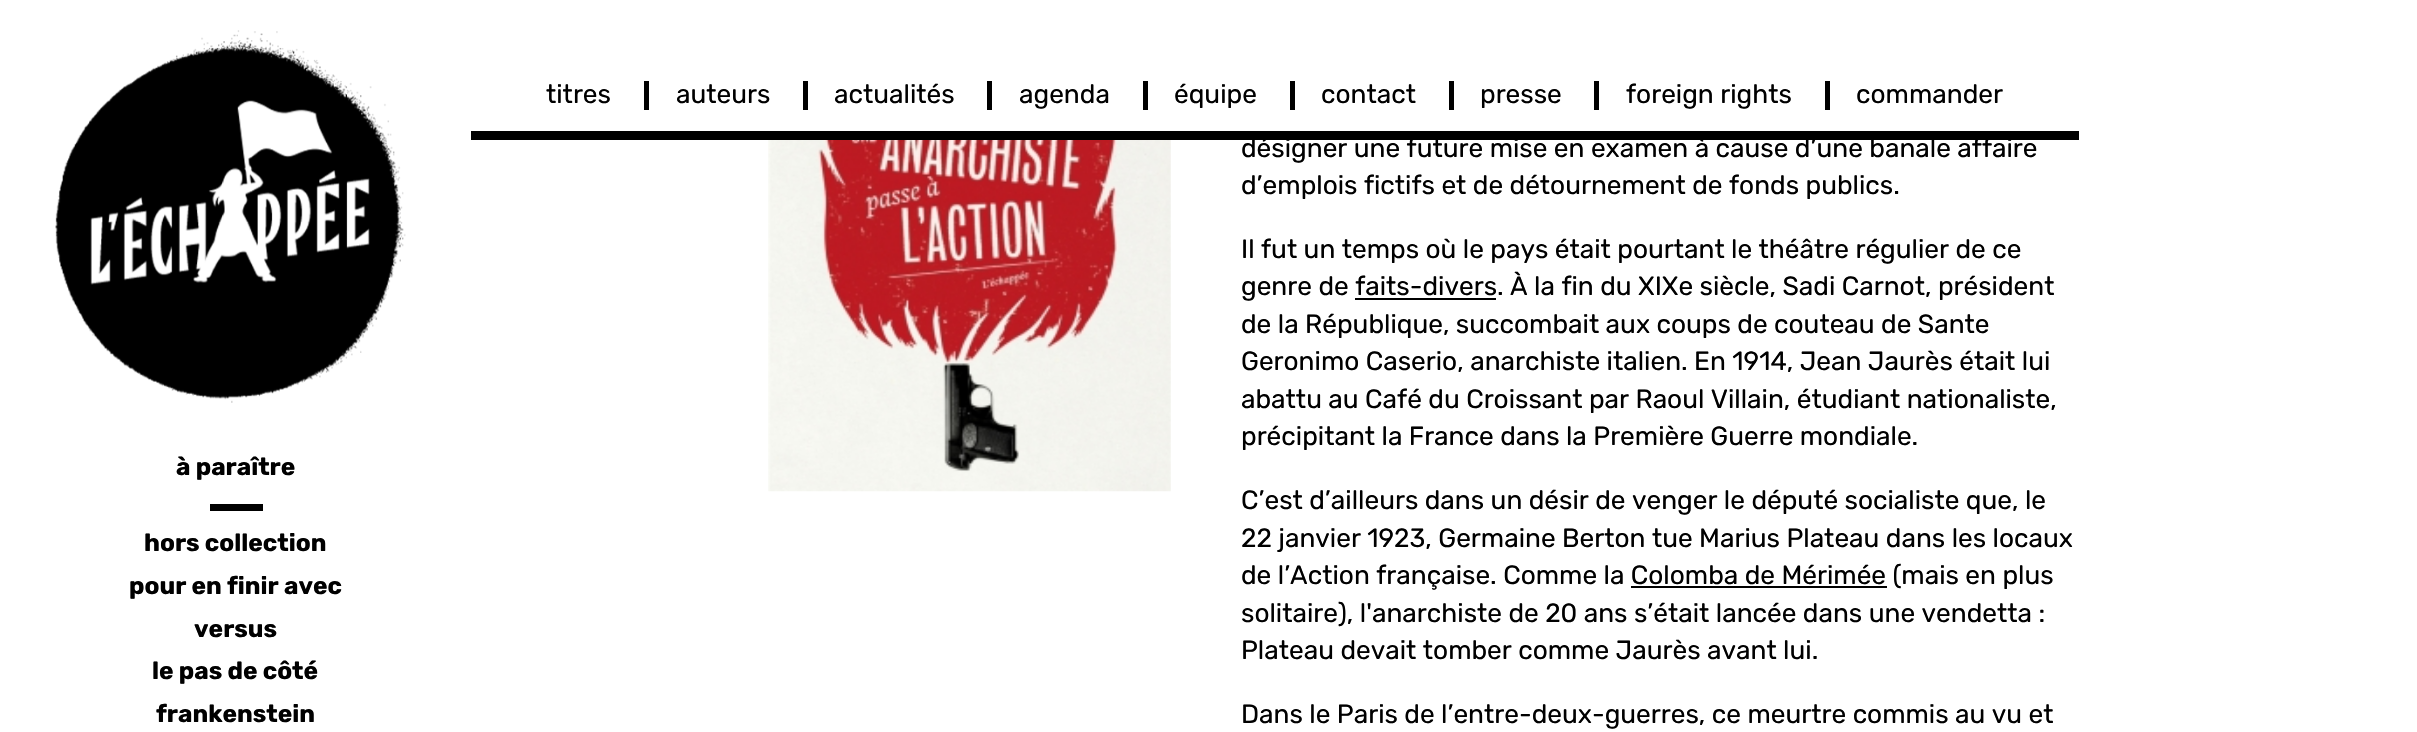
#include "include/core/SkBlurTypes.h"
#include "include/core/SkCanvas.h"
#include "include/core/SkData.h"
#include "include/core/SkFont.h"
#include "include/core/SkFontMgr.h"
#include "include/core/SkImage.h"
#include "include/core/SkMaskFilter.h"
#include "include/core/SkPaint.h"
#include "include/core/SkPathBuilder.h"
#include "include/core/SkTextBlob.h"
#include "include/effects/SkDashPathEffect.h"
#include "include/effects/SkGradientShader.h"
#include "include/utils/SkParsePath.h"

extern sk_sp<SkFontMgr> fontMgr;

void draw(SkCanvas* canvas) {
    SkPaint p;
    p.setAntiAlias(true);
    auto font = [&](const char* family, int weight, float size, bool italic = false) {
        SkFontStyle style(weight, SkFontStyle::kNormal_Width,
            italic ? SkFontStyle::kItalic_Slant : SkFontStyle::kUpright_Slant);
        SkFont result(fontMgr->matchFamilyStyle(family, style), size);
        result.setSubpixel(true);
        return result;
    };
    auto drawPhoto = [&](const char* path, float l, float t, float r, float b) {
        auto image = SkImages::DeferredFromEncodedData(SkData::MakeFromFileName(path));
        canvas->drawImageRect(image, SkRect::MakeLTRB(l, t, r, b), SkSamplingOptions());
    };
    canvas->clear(0xFFFFFFFF);
    p.setColor(0xFF000000);
    canvas->drawRect(SkRect::MakeLTRB(471, 131, 2079, 140), p);
    auto font1 = font("Rubik", 400, 26.25f);
    canvas->drawString("titres", 546, 103, font1, p);
    canvas->drawRect(SkRect::MakeLTRB(644, 81, 649, 110), p);
    canvas->drawString("auteurs", 676, 103, font1, p);
    canvas->drawRect(SkRect::MakeLTRB(803, 81, 808, 110), p);
    canvas->drawString("actualités", 834, 103, font1, p);
    canvas->drawRect(SkRect::MakeLTRB(987, 81, 992, 110), p);
    canvas->drawString("agenda", 1019, 103, font1, p);
    canvas->drawRect(SkRect::MakeLTRB(1143, 81, 1148, 110), p);
    canvas->drawString("équipe", 1174, 103, font1, p);
    canvas->drawRect(SkRect::MakeLTRB(1290, 81, 1295, 110), p);
    canvas->drawString("contact", 1321, 103, font1, p);
    canvas->drawRect(SkRect::MakeLTRB(1449, 81, 1454, 110), p);
    canvas->drawString("presse", 1480, 103, font1, p);
    canvas->drawRect(SkRect::MakeLTRB(1594, 81, 1599, 110), p);
    canvas->drawString("foreign rights", 1626, 103, font1, p);
    canvas->drawRect(SkRect::MakeLTRB(1825, 81, 1830, 110), p);
    canvas->drawString("commander", 1856, 103, font1, p);
    drawPhoto("media/1.png", 55, 30, 406, 403);
    auto font2 = font("Rubik", 700, 24.5f);
    canvas->drawString("à paraître", 176, 475, font2, p);
    canvas->drawRect(SkRect::MakeLTRB(210, 504, 263, 511), p);
    {
        const struct { const char* s; float x, y; } items[] = {
            {"hors collection", 144, 551},
            {"pour en finir avec", 129, 594},
            {"versus", 194, 637},
            {"le pas de côté", 152, 679},
            {"frankenstein", 156, 722},
        };
        for (auto [s, x, y] : items) {
            canvas->drawString(s, x, y, font2, p);
        }
    }
    drawPhoto("media/2.png", 768, 140, 1171, 492);
    {
        const struct { const char* s; float x, y; } items[] = {
            {"désigner une future mise en examen à cause d’une banale affaire", 1241, 157},
            {"d’emplois fictifs et de détournement de fonds publics.", 1241, 194},
            {"Il fut un temps où le pays était pourtant le théâtre régulier de ce", 1241, 258},
            {"genre de faits-divers. À la fin du XIXe siècle, Sadi Carnot, président", 1241, 295},
        };
        for (auto [s, x, y] : items) {
            canvas->drawString(s, x, y, font1, p);
        }
    }
    canvas->drawRect(SkRect::MakeLTRB(1355, 298, 1496, 300), p);
    {
        const struct { const char* s; float x, y; } items[] = {
            {"de la République, succombait aux coups de couteau de Sante", 1241, 333},
            {"Geronimo Caserio, anarchiste italien. En 1914, Jean Jaurès était lui", 1241, 370},
            {"abattu au Café du Croissant par Raoul Villain, étudiant nationaliste,", 1241, 408},
            {"précipitant la France dans la Première Guerre mondiale.", 1241, 445},
            {"C’est d’ailleurs dans un désir de venger le député socialiste que, le", 1241, 509},
            {"22 janvier 1923, Germaine Berton tue Marius Plateau dans les locaux", 1241, 547},
            {"de l’Action française. Comme la Colomba de Mérimée (mais en plus", 1241, 584},
        };
        for (auto [s, x, y] : items) {
            canvas->drawString(s, x, y, font1, p);
        }
    }
    canvas->drawRect(SkRect::MakeLTRB(1631, 586, 1887, 588), p);
    {
        const struct { const char* s; float x, y; } items[] = {
            {"solitaire), l'anarchiste de 20 ans s’était lancée dans une vendetta :", 1241, 622},
            {"Plateau devait tomber comme Jaurès avant lui.", 1241, 659},
            {"Dans le Paris de l’entre-deux-guerres, ce meurtre commis au vu et", 1241, 723},
        };
        for (auto [s, x, y] : items) {
            canvas->drawString(s, x, y, font1, p);
        }
    }
}
